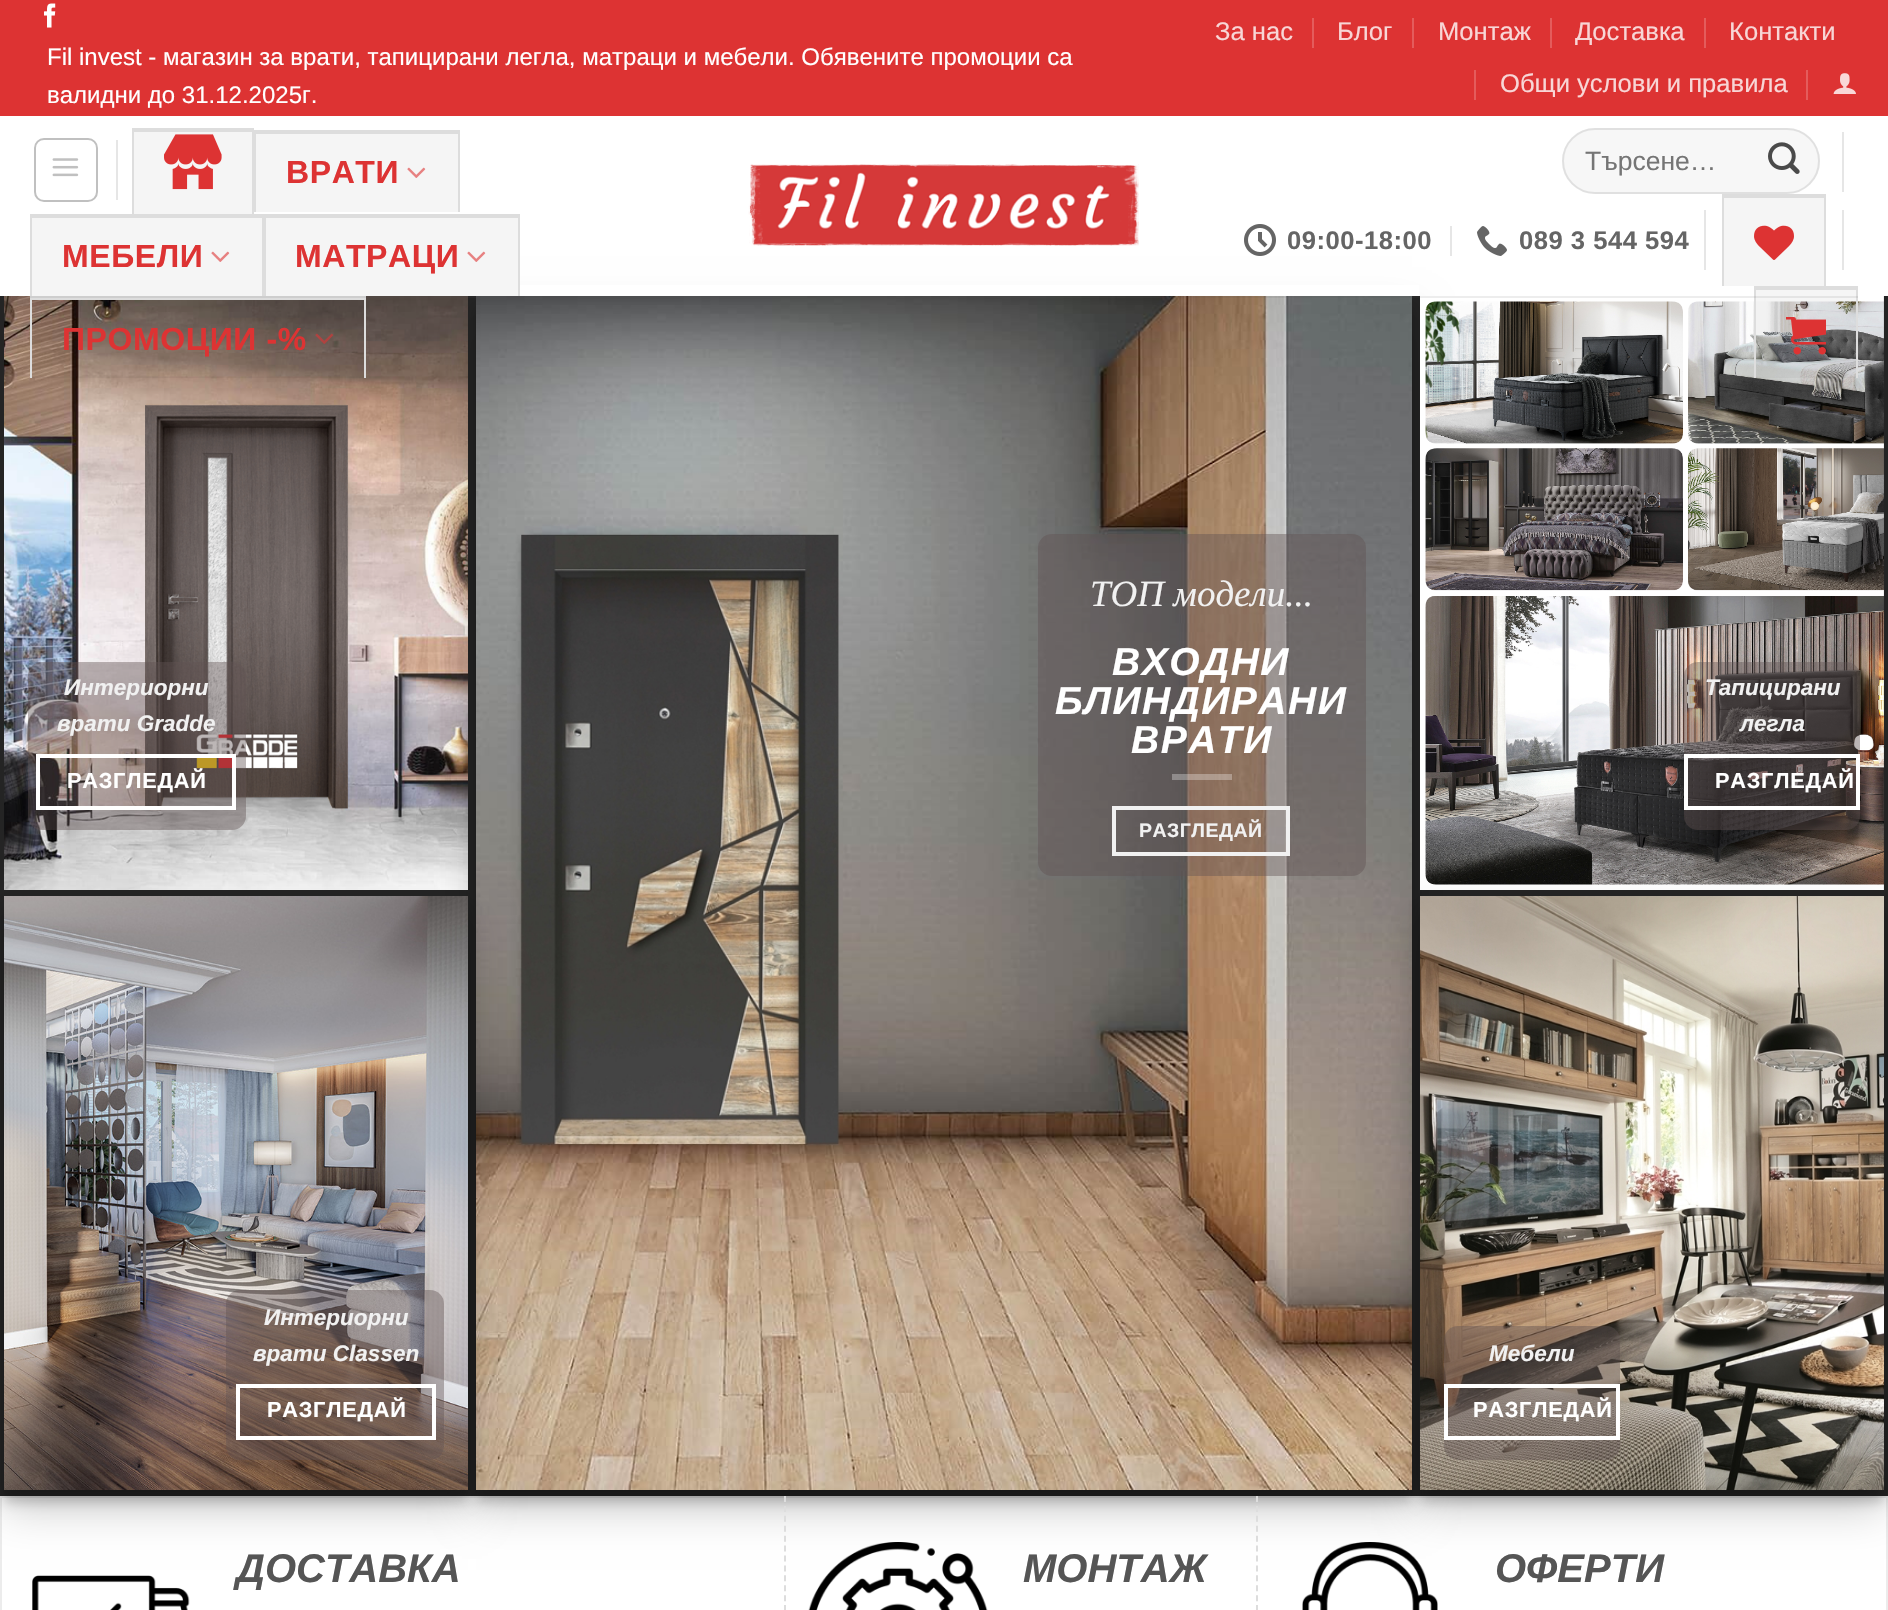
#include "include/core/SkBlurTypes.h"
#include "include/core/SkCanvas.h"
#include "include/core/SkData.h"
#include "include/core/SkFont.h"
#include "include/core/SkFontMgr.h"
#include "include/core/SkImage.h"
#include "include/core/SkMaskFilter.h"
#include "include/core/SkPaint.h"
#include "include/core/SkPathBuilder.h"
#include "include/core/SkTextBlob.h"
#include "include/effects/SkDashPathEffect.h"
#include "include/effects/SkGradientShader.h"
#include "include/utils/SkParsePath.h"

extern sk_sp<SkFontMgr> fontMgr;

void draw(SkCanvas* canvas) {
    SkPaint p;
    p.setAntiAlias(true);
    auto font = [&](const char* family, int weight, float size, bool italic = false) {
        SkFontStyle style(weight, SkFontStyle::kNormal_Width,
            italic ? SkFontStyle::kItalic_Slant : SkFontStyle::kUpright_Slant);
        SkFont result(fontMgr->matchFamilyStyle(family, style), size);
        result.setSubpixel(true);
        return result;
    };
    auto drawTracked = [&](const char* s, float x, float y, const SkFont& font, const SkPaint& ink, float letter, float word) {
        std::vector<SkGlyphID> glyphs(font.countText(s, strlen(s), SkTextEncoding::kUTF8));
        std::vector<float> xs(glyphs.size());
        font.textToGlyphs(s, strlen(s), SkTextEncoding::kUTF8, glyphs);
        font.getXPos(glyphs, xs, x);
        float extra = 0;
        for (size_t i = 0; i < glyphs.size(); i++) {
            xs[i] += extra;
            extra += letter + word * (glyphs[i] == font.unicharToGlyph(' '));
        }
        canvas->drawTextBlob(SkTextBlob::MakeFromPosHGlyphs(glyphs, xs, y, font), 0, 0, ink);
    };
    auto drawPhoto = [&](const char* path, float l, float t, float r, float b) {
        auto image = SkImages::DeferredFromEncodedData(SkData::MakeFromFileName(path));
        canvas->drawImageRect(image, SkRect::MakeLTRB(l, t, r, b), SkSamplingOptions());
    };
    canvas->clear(0xFFFFFFFF);
    p.setColor(0xFFDD3333);
    canvas->drawRect(SkRect::MakeLTRB(0, 0, 1888, 116), p);
    drawPhoto("media/1.png", 44, 3, 56, 28);
    auto font1 = font("Liberation Sans", 400, 24);
    p.setColor(0xFFFFFFFF);
    canvas->drawString("Fil invest - магазин за врати, тапицирани легла, матраци и мебели. Обявените промоции са", 47, 65, font1, p);
    canvas->drawString("валидни до 31.12.2025г.", 47, 103, font1, p);
    auto font2 = font("Liberation Sans", 400, 25.6f);
    p.setColor(0xFFF8D6D6);
    canvas->drawString("За нас", 1215, 40, font2, p);
    p.setColor(0xFFE45C5C);
    canvas->drawRect(SkRect::MakeLTRB(1312, 18, 1314, 48), p);
    p.setColor(0xFFF8D6D6);
    canvas->drawString("Блог", 1337, 40, font2, p);
    p.setColor(0xFFE45C5C);
    canvas->drawRect(SkRect::MakeLTRB(1412, 18, 1414, 48), p);
    p.setColor(0xFFF8D6D6);
    canvas->drawString("Монтаж", 1438, 40, font2, p);
    p.setColor(0xFFE45C5C);
    canvas->drawRect(SkRect::MakeLTRB(1550, 18, 1552, 48), p);
    p.setColor(0xFFF8D6D6);
    canvas->drawString("Доставка", 1575, 40, font2, p);
    p.setColor(0xFFE45C5C);
    canvas->drawRect(SkRect::MakeLTRB(1704, 18, 1706, 48), p);
    p.setColor(0xFFF8D6D6);
    canvas->drawString("Контакти", 1729, 40, font2, p);
    p.setColor(0xFFE45C5C);
    canvas->drawRect(SkRect::MakeLTRB(1474, 70, 1476, 100), p);
    p.setColor(0xFFF8D6D6);
    canvas->drawString("Общи услови и правила", 1500, 92, font2, p);
    p.setColor(0xFFE45C5C);
    canvas->drawRect(SkRect::MakeLTRB(1806, 70, 1808, 100), p);
    drawPhoto("media/2.png", 1833, 73, 1856, 94);
    p.setStyle(SkPaint::kStroke_Style);
    p.setStrokeWidth(2);
    p.setColor(0xFFC0C0C0);
    canvas->drawRoundRect(SkRect::MakeLTRB(35, 139, 97, 201), 9, 9, p);
    drawPhoto("media/3.png", 52, 158, 79, 177);
    p.setStyle(SkPaint::kFill_Style);
    {
        const struct { float l, t, r, b; SkColor color; } items[] = {
            {116, 140, 118, 200, 0xFFE6E6E6},
            {134, 132, 252, 214, 0xFFF5F5F5},
            {132, 128, 254, 132, 0xFFDDDDDD},
            {252, 128, 254, 214, 0xFFDDDDDD},
            {132, 128, 134, 214, 0xFFDDDDDD},
        };
        for (auto [l, t, r, b, color] : items) {
            p.setColor(color);
            canvas->drawRect(SkRect::MakeLTRB(l, t, r, b), p);
        }
    }
    drawPhoto("media/4.png", 164, 134, 222, 190);
    {
        const struct { float l, t, r, b; SkColor color; } items[] = {
            {256, 134, 458, 212, 0xFFF5F5F5},
            {254, 130, 460, 134, 0xFFDDDDDD},
            {458, 130, 460, 212, 0xFFDDDDDD},
            {254, 130, 256, 212, 0xFFDDDDDD},
        };
        for (auto [l, t, r, b, color] : items) {
            p.setColor(color);
            canvas->drawRect(SkRect::MakeLTRB(l, t, r, b), p);
        }
    }
    auto font3 = font("Liberation Sans", 700, 32);
    p.setColor(0xFFDD3333);
    drawTracked("ВРАТИ", 286, 183, font3, p, 0.6f, 0);
    drawPhoto("media/5.png", 407, 167, 426, 178);
    {
        const struct { float l, t, r, b; SkColor color; } items[] = {
            {32, 218, 262, 296, 0xFFF5F5F5},
            {30, 214, 520, 218, 0xFFDDDDDD},
            {262, 214, 266, 296, 0xFFDDDDDD},
            {30, 214, 32, 296, 0xFFDDDDDD},
        };
        for (auto [l, t, r, b, color] : items) {
            p.setColor(color);
            canvas->drawRect(SkRect::MakeLTRB(l, t, r, b), p);
        }
    }
    p.setColor(0xFFDD3333);
    drawTracked("МЕБЕЛИ", 62, 267, font3, p, 0.6f, 0);
    drawPhoto("media/5.png", 211, 251, 230, 262);
    p.setColor(0xFF242424);
    canvas->drawRect(SkRect::MakeLTRB(0, 296, 1888, 1496), p);
    drawPhoto("media/13.png", 4, 296, 468, 890);
    p.setStyle(SkPaint::kStroke_Style);
    p.setColor(0xFFECECEC);
    canvas->drawRect(SkRect::MakeLTRB(1, 1497, 1887, 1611), p);
    p.setStyle(SkPaint::kFill_Style);
    p.setColor(0x38000000);
    p.setMaskFilter(SkMaskFilter::MakeBlur(kNormal_SkBlurStyle, 6));
    canvas->drawRect(SkRect::MakeLTRB(476, 308, 1412, 1502), p);
    p.setMaskFilter(nullptr);
    p.setColor(0x30000000);
    p.setMaskFilter(SkMaskFilter::MakeBlur(kNormal_SkBlurStyle, 20));
    canvas->drawRect(SkRect::MakeLTRB(476, 316, 1412, 1510), p);
    p.setMaskFilter(nullptr);
    {
        const struct { float l, t, r, b; SkColor color; } items[] = {
            {469, 285, 1419, 296, 0xE6FFFFFF},
            {266, 218, 518, 296, 0xFFF5F5F5},
            {518, 214, 520, 296, 0xFFDDDDDD},
        };
        for (auto [l, t, r, b, color] : items) {
            p.setColor(color);
            canvas->drawRect(SkRect::MakeLTRB(l, t, r, b), p);
        }
    }
    p.setColor(0xFFDD3333);
    drawTracked("МАТРАЦИ", 295, 267, font3, p, 0.6f, 0);
    drawPhoto("media/5.png", 467, 251, 486, 262);
    {
        const struct { float l, t, r, b; SkColor color; } items[] = {
            {32, 300, 364, 378, 0x0A000000},
            {30, 296, 366, 300, 0xFFDDDDDD},
            {364, 296, 366, 378, 0xFFDDDDDD},
            {30, 296, 32, 378, 0xFFDDDDDD},
        };
        for (auto [l, t, r, b, color] : items) {
            p.setColor(color);
            canvas->drawRect(SkRect::MakeLTRB(l, t, r, b), p);
        }
    }
    p.setColor(0xFFDD3333);
    drawTracked("ПРОМОЦИИ -%", 62, 350, font3, p, 0.6f, 0);
    drawPhoto("media/6.png", 315, 333, 334, 344);
    drawPhoto("media/7.png", 748, 164, 1139, 246);
    p.setColor(0xFFF7F7F7);
    canvas->drawRoundRect(SkRect::MakeLTRB(1562, 128, 1820, 194), 33, 33, p);
    p.setStyle(SkPaint::kStroke_Style);
    p.setColor(0x17000000);
    canvas->drawRoundRect(SkRect::MakeLTRB(1563, 129, 1819, 193), 32, 32, p);
    auto font4 = font("Liberation Sans", 400, 26.5f);
    p.setStyle(SkPaint::kFill_Style);
    p.setColor(0xFF757575);
    canvas->drawString("Търсене…", 1585, 170, font4, p);
    drawPhoto("media/8.png", 1768, 142, 1800, 174);
    p.setColor(0xFFE6E6E6);
    canvas->drawRect(SkRect::MakeLTRB(1842, 132, 1844, 192), p);
    drawPhoto("media/9.png", 1244, 224, 1276, 256);
    auto font5 = font("Liberation Sans", 700, 25.6f);
    p.setColor(0xFF656565);
    drawTracked("09:00-18:00", 1287, 249, font5, p, 0.5f, 0);
    p.setColor(0xFFE6E6E6);
    canvas->drawRect(SkRect::MakeLTRB(1450, 226, 1452, 256), p);
    drawPhoto("media/10.png", 1477, 226, 1507, 256);
    p.setColor(0xFF656565);
    drawTracked("089 3 544 594", 1519, 249, font5, p, 0.5f, 0);
    {
        const struct { float l, t, r, b; SkColor color; } items[] = {
            {1704, 210, 1706, 270, 0xFFE6E6E6},
            {1724, 198, 1824, 286, 0xFFF5F5F5},
            {1722, 194, 1826, 198, 0xFFDDDDDD},
            {1824, 194, 1826, 286, 0xFFDDDDDD},
            {1722, 194, 1724, 286, 0xFFDDDDDD},
        };
        for (auto [l, t, r, b, color] : items) {
            p.setColor(color);
            canvas->drawRect(SkRect::MakeLTRB(l, t, r, b), p);
        }
    }
    drawPhoto("media/11.png", 1754, 225, 1794, 260);
    p.setColor(0xFFE6E6E6);
    canvas->drawRect(SkRect::MakeLTRB(1842, 210, 1844, 270), p);
    drawPhoto("media/15.png", 1420, 296, 1884, 890);
    {
        const struct { float l, t, r, b; SkColor color; } items[] = {
            {1756, 290, 1856, 378, 0x0A000000},
            {1754, 286, 1858, 290, 0xFFDDDDDD},
            {1856, 286, 1858, 378, 0xFFDDDDDD},
            {1754, 286, 1756, 378, 0xFFDDDDDD},
        };
        for (auto [l, t, r, b, color] : items) {
            p.setColor(color);
            canvas->drawRect(SkRect::MakeLTRB(l, t, r, b), p);
        }
    }
    drawPhoto("media/12.png", 1786, 317, 1826, 355);
    drawPhoto("media/14.png", 476, 296, 1412, 1490);
    p.setColor(0x1A4A4A4A);
    canvas->drawRect(SkRect::MakeLTRB(30, 296, 1858, 298), p);
    p.setColor(0x6B5F5151);
    canvas->drawRoundRect(SkRect::MakeLTRB(28, 662, 246, 830), 14, 14, p);
    auto font6 = font("Liberation Sans", 700, 22.5f, true);
    p.setColor(0xFFF1F1F1);
    canvas->drawString("Интериорни", 64, 695, font6, p);
    canvas->drawString("врати Gradde", 57, 731, font6, p);
    p.setStyle(SkPaint::kStroke_Style);
    p.setStrokeWidth(4);
    p.setColor(0xFFFFFFFF);
    canvas->drawRect(SkRect::MakeLTRB(38, 756, 234, 808), p);
    auto font7 = font("Liberation Sans", 700, 21.75f);
    p.setStyle(SkPaint::kFill_Style);
    drawTracked("РАЗГЛЕДАЙ", 67, 788, font7, p, 0.75f, 0);
    p.setColor(0x30000000);
    p.setMaskFilter(SkMaskFilter::MakeBlur(kNormal_SkBlurStyle, 20));
    canvas->drawRect(SkRect::MakeLTRB(1420, 916, 1884, 1510), p);
    p.setMaskFilter(nullptr);
    p.setColor(0x6B5F5151);
    canvas->drawRoundRect(SkRect::MakeLTRB(1038, 534, 1366, 876), 14, 14, p);
    auto font8 = font("Liberation Serif", 400, 37, true);
    p.setColor(0xFFF1F1F1);
    canvas->drawString("ТОП модели...", 1090, 606, font8, p);
    auto font9 = font("Liberation Sans", 700, 39, true);
    p.setColor(0xFFFFFFFF);
    {
        const struct { const char* s; float x, y; } items[] = {
            {"ВХОДНИ", 1112, 675},
            {"БЛИНДИРАНИ", 1055, 714},
            {"ВРАТИ", 1131, 753},
        };
        for (auto [s, x, y] : items) {
            drawTracked(s, x, y, font9, p, 1.5f, 0);
        }
    }
    p.setColor(0x4DFFFFFF);
    canvas->drawRect(SkRect::MakeLTRB(1172, 774, 1232, 780), p);
    p.setStyle(SkPaint::kStroke_Style);
    p.setColor(0xFFF1F1F1);
    canvas->drawRect(SkRect::MakeLTRB(1114, 808, 1288, 854), p);
    auto font10 = font("Liberation Sans", 700, 19.5f);
    p.setStyle(SkPaint::kFill_Style);
    drawTracked("РАЗГЛЕДАЙ", 1139, 837, font10, p, 0.5f, 0);
    p.setColor(0x6B5F5151);
    canvas->drawRoundRect(SkRect::MakeLTRB(1684, 662, 1860, 830), 14, 14, p);
    p.setColor(0xFFF1F1F1);
    canvas->drawString("Тапицирани", 1705, 695, font6, p);
    canvas->drawString("легла", 1740, 731, font6, p);
    p.setStyle(SkPaint::kStroke_Style);
    p.setColor(0xFFFFFFFF);
    canvas->drawRect(SkRect::MakeLTRB(1686, 756, 1858, 808), p);
    p.setStyle(SkPaint::kFill_Style);
    drawTracked("РАЗГЛЕДАЙ", 1715, 788, font7, p, 0.75f, 0);
    p.setColor(0x38000000);
    p.setMaskFilter(SkMaskFilter::MakeBlur(kNormal_SkBlurStyle, 6));
    canvas->drawRect(SkRect::MakeLTRB(4, 908, 468, 1502), p);
    p.setMaskFilter(nullptr);
    p.setColor(0x30000000);
    p.setMaskFilter(SkMaskFilter::MakeBlur(kNormal_SkBlurStyle, 20));
    canvas->drawRect(SkRect::MakeLTRB(4, 916, 468, 1510), p);
    p.setMaskFilter(nullptr);
    drawPhoto("media/16.png", 4, 896, 468, 1490);
    p.setColor(0x6B5F5151);
    canvas->drawRoundRect(SkRect::MakeLTRB(226, 1290, 444, 1460), 14, 14, p);
    p.setColor(0xFFF1F1F1);
    canvas->drawString("Интериорни", 264, 1325, font6, p);
    canvas->drawString("врати Classen", 253, 1361, font6, p);
    p.setStyle(SkPaint::kStroke_Style);
    p.setColor(0xFFFFFFFF);
    canvas->drawRect(SkRect::MakeLTRB(238, 1386, 434, 1438), p);
    p.setStyle(SkPaint::kFill_Style);
    drawTracked("РАЗГЛЕДАЙ", 267, 1417, font7, p, 0.75f, 0);
    p.setColor(0x38000000);
    p.setMaskFilter(SkMaskFilter::MakeBlur(kNormal_SkBlurStyle, 6));
    canvas->drawRect(SkRect::MakeLTRB(1420, 908, 1884, 1502), p);
    p.setMaskFilter(nullptr);
    drawPhoto("media/17.png", 1420, 896, 1884, 1490);
    p.setColor(0x6B5F5151);
    canvas->drawRoundRect(SkRect::MakeLTRB(1444, 1326, 1620, 1460), 14, 14, p);
    p.setColor(0xFFF1F1F1);
    canvas->drawString("Мебели", 1489, 1361, font6, p);
    p.setStyle(SkPaint::kStroke_Style);
    p.setColor(0xFFFFFFFF);
    canvas->drawRect(SkRect::MakeLTRB(1446, 1386, 1618, 1438), p);
    p.setStyle(SkPaint::kFill_Style);
    drawTracked("РАЗГЛЕДАЙ", 1473, 1417, font7, p, 0.75f, 0);
    drawPhoto("media/18.png", 32, 1575, 190, 1610);
    auto font11 = font("Liberation Sans", 700, 40, true);
    p.setColor(0xFF555555);
    canvas->drawString("ДОСТАВКА", 236, 1582, font11, p);
    p.setStyle(SkPaint::kStroke_Style);
    p.setStrokeWidth(2);
    p.setColor(0xFFDDDDDD);
    p.setPathEffect(SkDashPathEffect::Make({{6, 3.92f}}, 0));
    canvas->drawPath(SkPathBuilder().moveTo(785, 1496).lineTo(785, 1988).detach(), p);
    p.setPathEffect(nullptr);
    drawPhoto("media/19.png", 808, 1542, 988, 1610);
    p.setStyle(SkPaint::kFill_Style);
    p.setColor(0xFF555555);
    canvas->drawString("МОНТАЖ", 1023, 1582, font11, p);
    p.setStyle(SkPaint::kStroke_Style);
    p.setColor(0xFFDDDDDD);
    p.setPathEffect(SkDashPathEffect::Make({{6, 3.92f}}, 0));
    canvas->drawPath(SkPathBuilder().moveTo(1257, 1496).lineTo(1257, 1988).detach(), p);
    p.setPathEffect(nullptr);
    drawPhoto("media/20.png", 1302, 1542, 1438, 1610);
    p.setStyle(SkPaint::kFill_Style);
    p.setColor(0xFF555555);
    canvas->drawString("ОФЕРТИ", 1495, 1582, font11, p);
}
